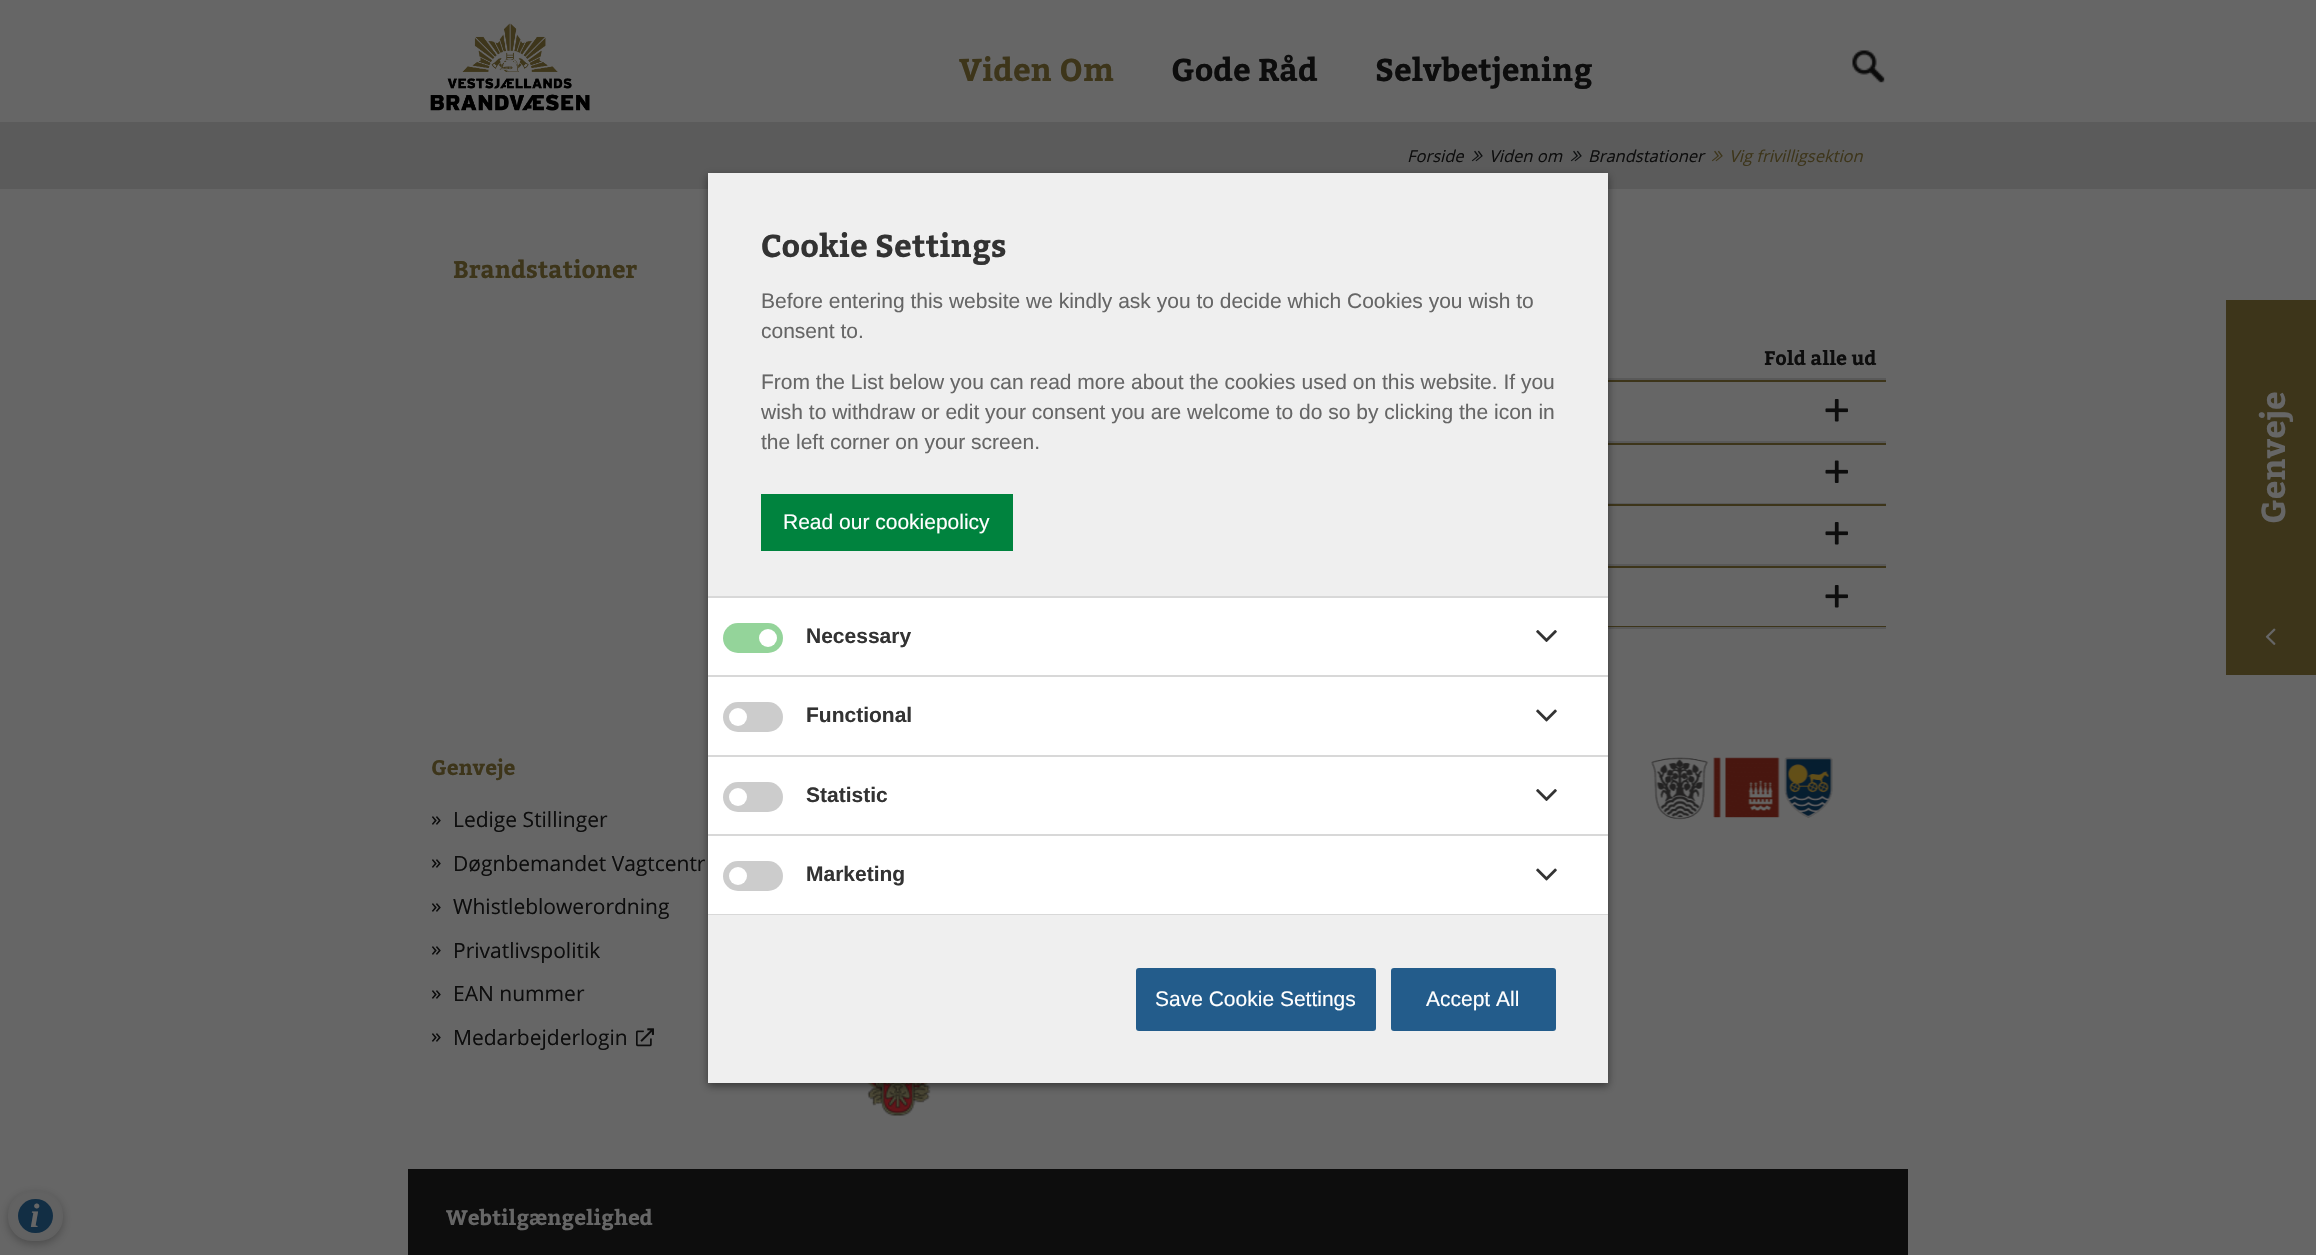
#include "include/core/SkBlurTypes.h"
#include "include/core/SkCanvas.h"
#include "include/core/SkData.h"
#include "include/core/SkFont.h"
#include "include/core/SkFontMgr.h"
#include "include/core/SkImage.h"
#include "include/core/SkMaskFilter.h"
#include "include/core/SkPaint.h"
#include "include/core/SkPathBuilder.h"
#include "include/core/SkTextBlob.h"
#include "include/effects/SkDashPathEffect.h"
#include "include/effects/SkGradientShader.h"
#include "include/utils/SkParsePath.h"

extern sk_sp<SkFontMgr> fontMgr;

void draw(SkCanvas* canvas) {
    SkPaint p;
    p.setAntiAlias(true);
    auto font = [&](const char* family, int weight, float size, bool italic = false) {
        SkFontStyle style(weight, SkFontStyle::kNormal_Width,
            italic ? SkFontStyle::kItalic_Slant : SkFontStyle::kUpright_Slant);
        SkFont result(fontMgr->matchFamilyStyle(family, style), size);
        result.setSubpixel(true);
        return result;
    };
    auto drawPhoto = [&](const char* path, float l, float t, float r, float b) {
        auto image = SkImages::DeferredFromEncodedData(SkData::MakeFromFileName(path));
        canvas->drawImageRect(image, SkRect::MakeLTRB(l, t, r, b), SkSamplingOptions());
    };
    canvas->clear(0xFF5B5B5B);
    p.setColor(0xFF666666);
    canvas->drawRect(SkRect::MakeLTRB(0, 0, 2316, 122), p);
    drawPhoto("media/1.png", 430, 23, 590, 111);
    auto font1 = font("Bitter", 700, 31.5f);
    p.setColor(0xFF3D351A);
    canvas->drawString("Viden Om", 959, 81, font1, p);
    p.setColor(0xFF0D0D0D);
    canvas->drawString("Gode Råd", 1171, 81, font1, p);
    canvas->drawString("Selvbetjening", 1375, 81, font1, p);
    drawPhoto("media/2.png", 1852, 50, 1885, 83);
    {
        const struct { float l, t, r, b; SkColor color; } items[] = {
            {0, 189, 2316, 1255, 0xFF666666},
            {1608, 378, 1886, 380, 0xFF595959},
            {1608, 380, 1886, 382, 0xFF3D351A},
            {1608, 441, 1886, 443, 0xFF595959},
            {1608, 443, 1886, 445, 0xFF3D351A},
            {1608, 503, 1886, 504, 0xFF595959},
            {1608, 504, 1886, 506, 0xFF3D351A},
            {1608, 564, 1886, 566, 0xFF595959},
            {1608, 627, 1886, 629, 0xFF595959},
            {1608, 566, 1886, 568, 0xFF3D351A},
            {1608, 626, 1886, 627, 0xFF3D351A},
        };
        for (auto [l, t, r, b, color] : items) {
            p.setColor(color);
            canvas->drawRect(SkRect::MakeLTRB(l, t, r, b), p);
        }
    }
    drawPhoto("media/12.png", 867, 1083, 931, 1116);
    p.setColor(0x75000000);
    p.setMaskFilter(SkMaskFilter::MakeBlur(kNormal_SkBlurStyle, 4));
    canvas->drawRect(SkRect::MakeLTRB(708, 176, 1608, 1086), p);
    p.setMaskFilter(nullptr);
    p.setColor(0xFFEFEFEF);
    canvas->drawRect(SkRect::MakeLTRB(708, 173, 1608, 596), p);
    p.setColor(0xFFD8D8D8);
    canvas->drawRect(SkRect::MakeLTRB(708, 596, 1608, 598), p);
    p.setColor(0xFF333333);
    canvas->drawString("Cookie Settings", 761, 257, font1, p);
    auto font2 = font("Liberation Sans", 400, 21);
    p.setColor(0xFF666666);
    {
        const struct { const char* s; float x, y; } items[] = {
            {"Before entering this website we kindly ask you to decide which Cookies you wish to", 761, 308},
            {"consent to.", 761, 338},
            {"From the List below you can read more about the cookies used on this website. If you", 761, 389},
            {"wish to withdraw or edit your consent you are welcome to do so by clicking the icon in", 761, 419},
            {"the left corner on your screen.", 761, 449},
        };
        for (auto [s, x, y] : items) {
            canvas->drawString(s, x, y, font2, p);
        }
    }
    p.setColor(0xFF00833E);
    canvas->drawRect(SkRect::MakeLTRB(761, 494, 1013, 551), p);
    p.setColor(0xFFFFFFFF);
    canvas->drawString("Read our cookiepolicy", 783, 529, font2, p);
    canvas->drawRect(SkRect::MakeLTRB(708, 598, 1608, 914), p);
    p.setColor(0xFFD8D8D8);
    canvas->drawRect(SkRect::MakeLTRB(708, 675, 1608, 677), p);
    p.setColor(0xFF94D49A);
    canvas->drawRoundRect(SkRect::MakeLTRB(723, 623, 783, 653), 15, 15, p);
    p.setColor(0xFFFFFFFF);
    canvas->drawCircle(768, 638, 9, p);
    auto font3 = font("Liberation Sans", 700, 21);
    p.setColor(0xFF333333);
    canvas->drawString("Necessary", 806, 643, font3, p);
    drawPhoto("media/3.png", 1536, 630, 1557, 642);
    p.setColor(0xFFD8D8D8);
    canvas->drawRect(SkRect::MakeLTRB(708, 755, 1608, 757), p);
    p.setColor(0xFFCCCCCC);
    canvas->drawRoundRect(SkRect::MakeLTRB(723, 702, 783, 732), 15, 15, p);
    p.setColor(0xFFFFFFFF);
    canvas->drawCircle(738, 717, 9, p);
    p.setColor(0xFF333333);
    canvas->drawString("Functional", 806, 722, font3, p);
    drawPhoto("media/4.png", 1536, 709, 1557, 722);
    p.setColor(0xFFD8D8D8);
    canvas->drawRect(SkRect::MakeLTRB(708, 834, 1608, 836), p);
    p.setColor(0xFFCCCCCC);
    canvas->drawRoundRect(SkRect::MakeLTRB(723, 782, 783, 812), 15, 15, p);
    p.setColor(0xFFFFFFFF);
    canvas->drawCircle(738, 797, 9, p);
    p.setColor(0xFF333333);
    canvas->drawString("Statistic", 806, 802, font3, p);
    drawPhoto("media/3.png", 1536, 789, 1557, 801);
    p.setColor(0xFFD8D8D8);
    canvas->drawRect(SkRect::MakeLTRB(708, 914, 1608, 915), p);
    p.setColor(0xFFCCCCCC);
    canvas->drawRoundRect(SkRect::MakeLTRB(723, 861, 783, 891), 15, 15, p);
    p.setColor(0xFFFFFFFF);
    canvas->drawCircle(738, 876, 9, p);
    p.setColor(0xFF333333);
    canvas->drawString("Marketing", 806, 881, font3, p);
    drawPhoto("media/4.png", 1536, 868, 1557, 881);
    p.setColor(0xFFEFEFEF);
    canvas->drawRect(SkRect::MakeLTRB(708, 915, 1608, 1083), p);
    p.setColor(0xFF235C8B);
    canvas->drawRoundRect(SkRect::MakeLTRB(1136, 968, 1376, 1031), 3, 3, p);
    p.setColor(0xFFFFFFFF);
    canvas->drawString("Save Cookie Settings", 1155, 1006, font2, p);
    p.setColor(0xFF235C8B);
    canvas->drawRoundRect(SkRect::MakeLTRB(1391, 968, 1556, 1031), 3, 3, p);
    p.setColor(0xFFFFFFFF);
    canvas->drawString("Accept All", 1426, 1006, font2, p);
    auto font4 = font("Open Sans", 400, 16.5f, true);
    p.setColor(0xFF0D0D0D);
    canvas->drawString("Forside", 1407, 162, font4, p);
    drawPhoto("media/5.png", 1471, 150, 1483, 162);
    canvas->drawString("Viden om", 1489, 162, font4, p);
    drawPhoto("media/5.png", 1570, 150, 1582, 162);
    canvas->drawString("Brandstationer", 1588, 162, font4, p);
    drawPhoto("media/6.png", 1712, 150, 1723, 162);
    p.setColor(0xFF3D351A);
    canvas->drawString("Vig frivilligsektion", 1729, 162, font4, p);
    canvas->drawRect(SkRect::MakeLTRB(2226, 300, 2316, 675), p);
    auto font5 = font("Bitter", 700, 33);
    p.setColor(0xFF666666);
    canvas->save();
    canvas->rotate(-90, 2285, 524);
    canvas->drawString("Genveje", 2285, 524, font5, p);
    canvas->restore();
    drawPhoto("media/7.png", 2265, 628, 2276, 645);
    auto font6 = font("Bitter", 700, 24);
    p.setColor(0xFF3D351A);
    canvas->drawString("Brandstationer", 453, 278, font6, p);
    auto font7 = font("Bitter", 700, 19.5f);
    p.setColor(0xFF0D0D0D);
    canvas->drawString("Fold alle ud", 1764, 365, font7, p);
    drawPhoto("media/8.png", 1825, 399, 1848, 422);
    drawPhoto("media/9.png", 1825, 460, 1848, 483);
    drawPhoto("media/8.png", 1825, 522, 1848, 545);
    drawPhoto("media/8.png", 1825, 585, 1848, 608);
    p.setColor(0x42000000);
    p.setMaskFilter(SkMaskFilter::MakeBlur(kNormal_SkBlurStyle, 4));
    canvas->drawRoundRect(SkRect::MakeLTRB(8, 1194, 63, 1244), 24, 24, p);
    p.setMaskFilter(nullptr);
    p.setColor(0xFF626262);
    canvas->drawRoundRect(SkRect::MakeLTRB(9, 1192, 62, 1240), 23, 23, p);
    p.setStyle(SkPaint::kStroke_Style);
    p.setStrokeWidth(2);
    p.setColor(0xFF616161);
    canvas->drawRoundRect(SkRect::MakeLTRB(9, 1192, 62, 1240), 23, 23, p);
    p.setStyle(SkPaint::kFill_Style);
    p.setColor(0xFF122E44);
    canvas->drawRoundRect(SkRect::MakeLTRB(18, 1199, 53, 1233), 17, 17, p);
    auto font8 = font("Liberation Serif", 700, 34, true);
    p.setColor(0xFF666666);
    canvas->drawString("i", 30, 1227, font8, p);
    auto font9 = font("Bitter", 700, 21);
    p.setColor(0xFF3D351A);
    canvas->drawString("Genveje", 431, 775, font9, p);
    auto font10 = font("Open Sans", 400, 21);
    p.setColor(0xFF0D0D0D);
    {
        const struct { const char* s; float x, y; } items[] = {
            {"»", 431, 826},
            {"Ledige Stillinger", 453, 827},
            {"»", 431, 869},
            {"Døgnbemandet Vagtcentr", 453, 871},
            {"»", 431, 913},
            {"Whistleblowerordning", 453, 914},
            {"»", 431, 956},
            {"Privatlivspolitik", 453, 958},
            {"»", 431, 1000},
            {"EAN nummer", 453, 1001},
            {"»", 431, 1043},
            {"Medarbejderlogin", 453, 1045},
        };
        for (auto [s, x, y] : items) {
            canvas->drawString(s, x, y, font10, p);
        }
    }
    drawPhoto("media/10.png", 636, 1028, 654, 1047);
    drawPhoto("media/11.png", 1651, 757, 1833, 820);
    canvas->drawRect(SkRect::MakeLTRB(408, 1169, 1908, 1255), p);
    p.setColor(0xFF666666);
    canvas->drawString("Webtilgængelighed", 446, 1225, font9, p);
}
